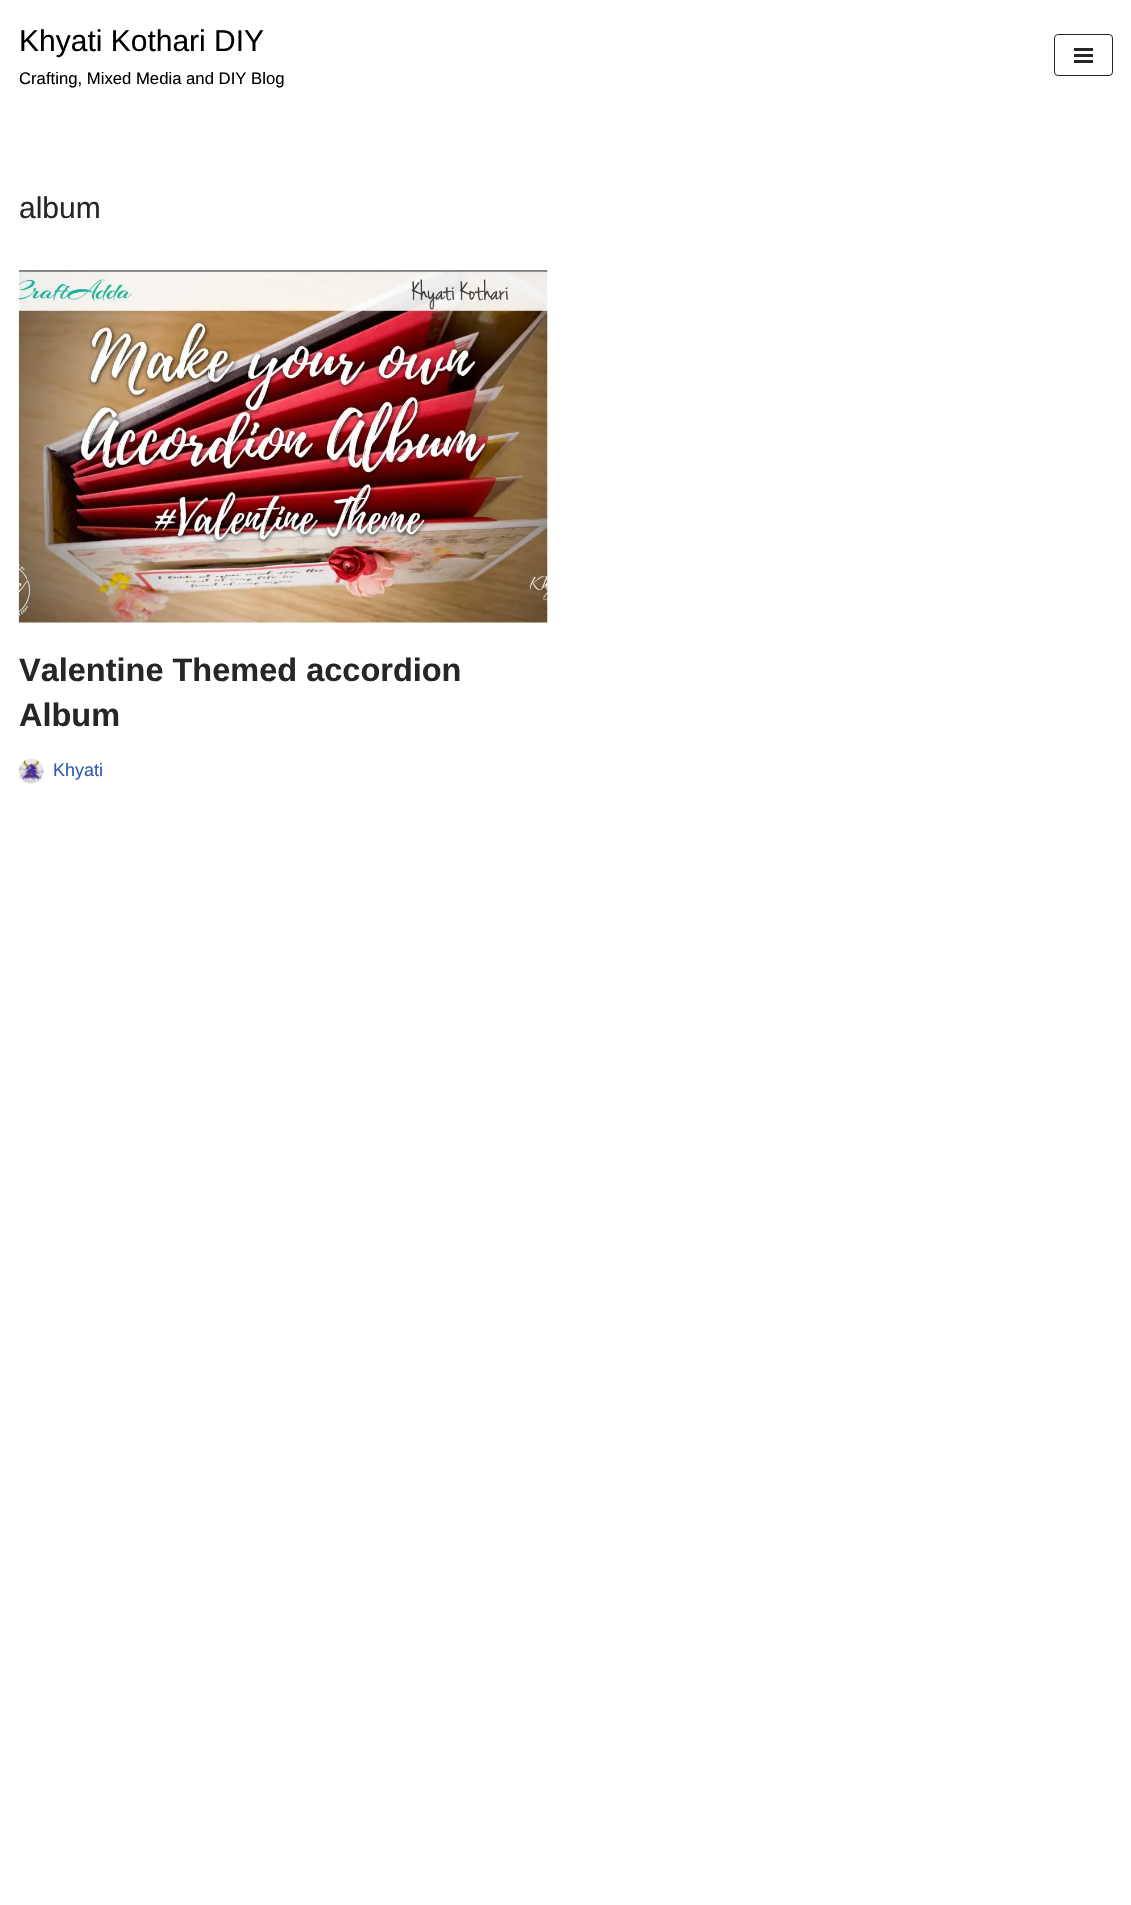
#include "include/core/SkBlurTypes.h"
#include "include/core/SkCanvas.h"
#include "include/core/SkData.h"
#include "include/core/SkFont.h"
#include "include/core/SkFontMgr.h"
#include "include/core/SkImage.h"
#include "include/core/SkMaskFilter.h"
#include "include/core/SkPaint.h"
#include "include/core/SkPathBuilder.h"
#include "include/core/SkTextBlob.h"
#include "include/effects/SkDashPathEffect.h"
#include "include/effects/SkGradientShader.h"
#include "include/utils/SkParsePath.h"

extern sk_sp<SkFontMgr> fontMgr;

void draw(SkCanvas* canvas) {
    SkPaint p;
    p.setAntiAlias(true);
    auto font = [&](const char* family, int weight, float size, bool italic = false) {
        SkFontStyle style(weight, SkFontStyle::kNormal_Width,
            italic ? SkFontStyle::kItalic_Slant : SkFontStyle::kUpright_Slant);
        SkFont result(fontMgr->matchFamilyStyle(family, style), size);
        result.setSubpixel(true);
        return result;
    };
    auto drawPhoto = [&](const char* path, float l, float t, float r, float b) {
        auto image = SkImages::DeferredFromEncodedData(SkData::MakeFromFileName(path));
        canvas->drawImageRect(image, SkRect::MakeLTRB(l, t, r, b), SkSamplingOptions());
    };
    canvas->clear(0xFFFFFFFF);
    auto font1 = font("Liberation Sans", 400, 30);
    p.setColor(0xFF000000);
    canvas->drawString("Khyati Kothari DIY", 19, 51, font1, p);
    auto font2 = font("Liberation Sans", 400, 16.7f);
    canvas->drawString("Crafting, Mixed Media and DIY Blog", 19, 84, font2, p);
    p.setStyle(SkPaint::kStroke_Style);
    p.setStrokeWidth(1);
    p.setColor(0xFF272626);
    canvas->drawRoundRect(SkRect::MakeLTRB(1054.5f, 34.5f, 1112.5f, 75.5f), 3.5f, 3.5f, p);
    p.setStyle(SkPaint::kFill_Style);
    {
        const struct { float l, t, r, b; SkColor color; } items[] = {
            {1074, 48, 1093, 51, 0xFF272626},
            {1074, 54, 1093, 57, 0xFF272626},
            {1074, 60, 1093, 63, 0xFF272626},
        };
        for (auto [l, t, r, b, color] : items) {
            p.setColor(color);
            canvas->drawRect(SkRect::MakeLTRB(l, t, r, b), p);
        }
    }
    canvas->drawString("album", 19, 218, font1, p);
    drawPhoto("media/1.png", 18, 270, 548, 623);
    auto font3 = font("Liberation Sans", 700, 32.5f);
    canvas->drawString("Valentine Themed accordion", 19, 681, font3, p);
    canvas->drawString("Album", 19, 726, font3, p);
    drawPhoto("media/2.png", 19, 759, 44, 784);
    auto font4 = font("Liberation Sans", 400, 18);
    p.setColor(0xFF2F5AAE);
    canvas->drawString("Khyati", 53, 776, font4, p);
}
